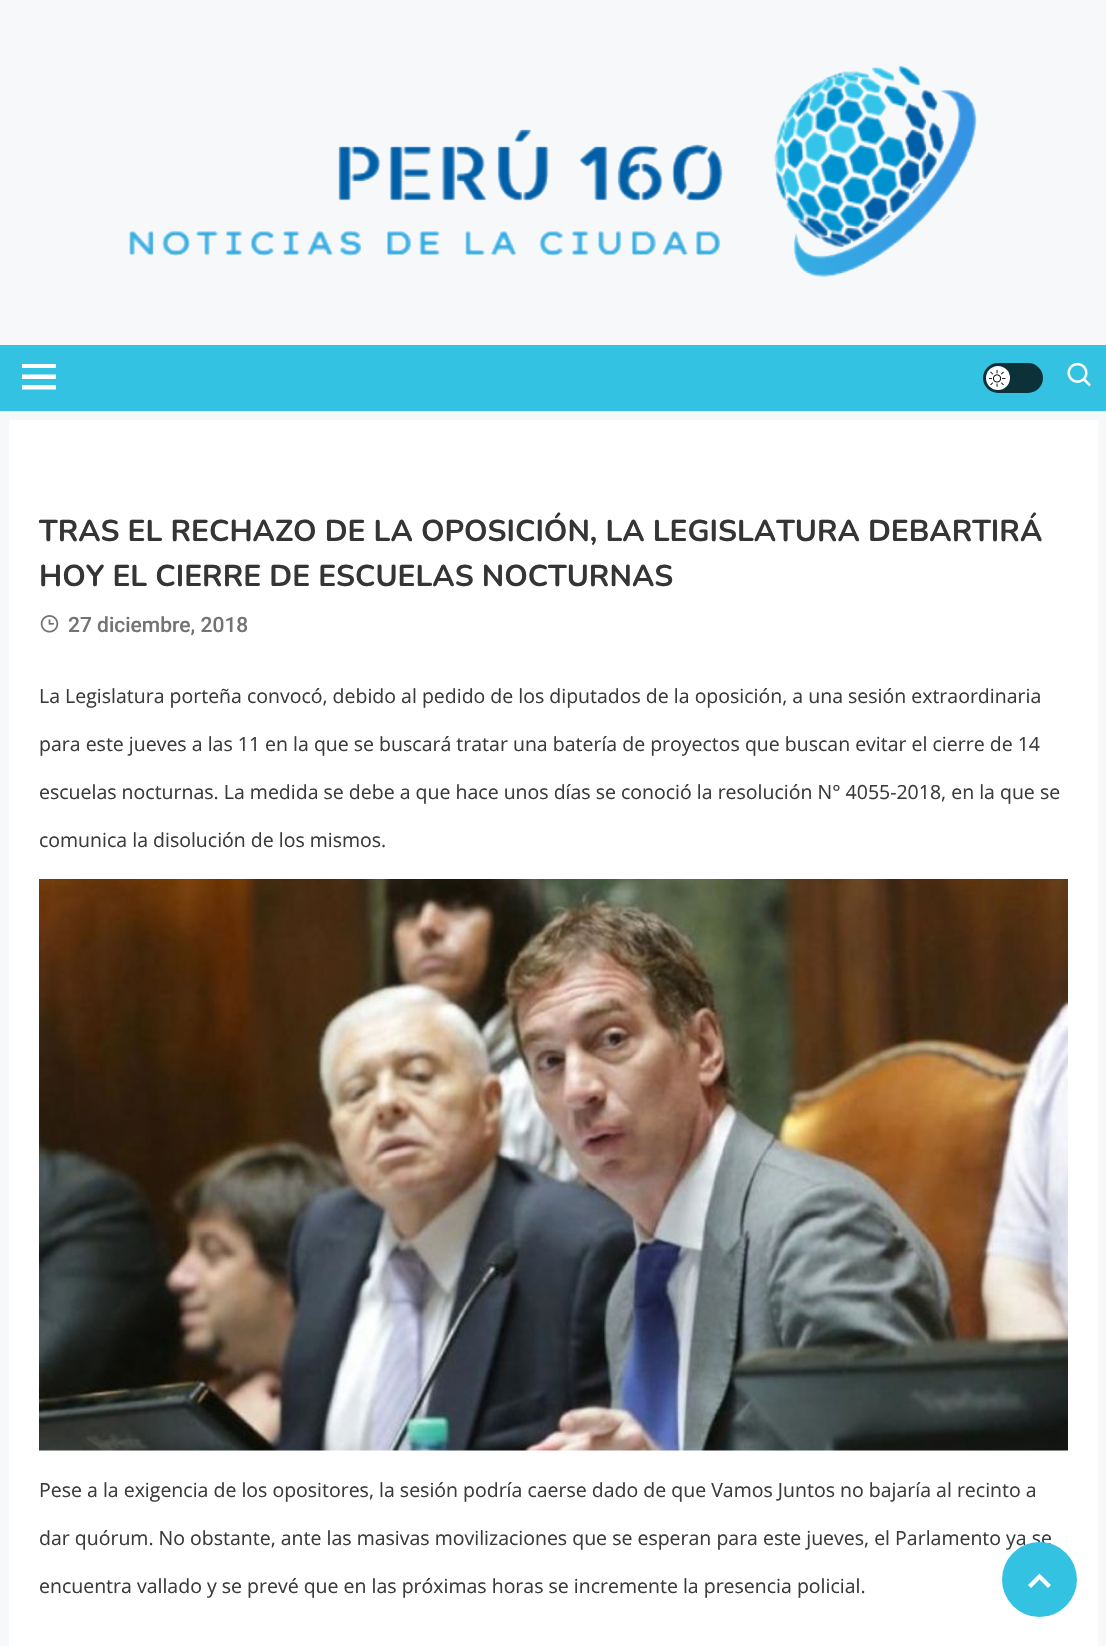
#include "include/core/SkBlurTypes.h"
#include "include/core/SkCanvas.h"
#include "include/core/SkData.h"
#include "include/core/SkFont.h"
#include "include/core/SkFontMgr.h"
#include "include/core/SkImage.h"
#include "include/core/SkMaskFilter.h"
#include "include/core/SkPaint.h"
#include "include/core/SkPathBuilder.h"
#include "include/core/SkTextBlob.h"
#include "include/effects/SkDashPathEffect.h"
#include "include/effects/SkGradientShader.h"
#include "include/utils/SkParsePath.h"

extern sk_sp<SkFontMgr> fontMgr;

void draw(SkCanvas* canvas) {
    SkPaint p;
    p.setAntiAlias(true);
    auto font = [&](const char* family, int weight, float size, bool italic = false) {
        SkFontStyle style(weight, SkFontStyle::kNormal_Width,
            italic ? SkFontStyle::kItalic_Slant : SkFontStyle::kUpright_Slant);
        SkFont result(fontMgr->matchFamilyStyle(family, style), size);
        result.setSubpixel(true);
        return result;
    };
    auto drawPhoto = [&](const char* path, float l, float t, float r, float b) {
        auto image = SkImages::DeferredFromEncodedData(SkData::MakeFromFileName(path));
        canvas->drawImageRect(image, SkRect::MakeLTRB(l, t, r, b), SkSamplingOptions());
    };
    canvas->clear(0xFFF7F8F9);
    drawPhoto("media/1.png", 129, 65, 977, 278);
    p.setColor(0xFF34C2E2);
    canvas->drawRect(SkRect::MakeLTRB(0, 345, 1106, 411), p);
    p.setColor(0xFFFFFFFF);
    canvas->drawPath(SkPathBuilder().moveTo(22, 364).lineTo(56, 364).lineTo(56, 368).lineTo(22, 368).close().moveTo(22, 374.5f).lineTo(56, 374.5f).lineTo(56, 379).lineTo(22, 379).close().moveTo(22, 385).lineTo(56, 385).lineTo(56, 389.5f).lineTo(22, 389.5f).close().detach(), p);
    p.setColor(0xFF0D3139);
    canvas->drawRoundRect(SkRect::MakeLTRB(983, 363, 1043, 393), 15, 15, p);
    p.setColor(0xFFFFFFFF);
    canvas->drawCircle(998, 378, 12, p);
    drawPhoto("media/2.png", 989, 370, 1006, 387);
    drawPhoto("media/3.png", 1067, 362, 1091, 387);
    canvas->drawRect(SkRect::MakeLTRB(9, 420, 1098, 1646), p);
    auto font1 = font("Nunito", 700, 30);
    p.setColor(0xFF353535);
    canvas->drawString("TRAS EL RECHAZO DE LA OPOSICIÓN, LA LEGISLATURA DEBARTIRÁ", 39, 541, font1, p);
    canvas->drawString("HOY EL CIERRE DE ESCUELAS NOCTURNAS", 39, 586, font1, p);
    drawPhoto("media/4.png", 40, 615, 59, 633);
    auto font2 = font("Roboto", 500, 21);
    p.setColor(0xFF737373);
    canvas->drawString("27 diciembre, 2018", 68, 632, font2, p);
    auto font3 = font("Open Sans", 400, 19.5f);
    p.setColor(0xFF3B3B3B);
    {
        const struct { const char* s; float x, y; } items[] = {
            {"La Legislatura porteña convocó, debido al pedido de los diputados de la oposición, a una sesión extraordinaria", 39, 703},
            {"para este jueves a las 11 en la que se buscará tratar una batería de proyectos que buscan evitar el cierre de 14", 39, 751},
            {"escuelas nocturnas. La medida se debe a que hace unos días se conoció la resolución N° 4055-2018, en la que se", 39, 799},
            {"comunica la disolución de los mismos.", 39, 847},
        };
        for (auto [s, x, y] : items) {
            canvas->drawString(s, x, y, font3, p);
        }
    }
    drawPhoto("media/5.png", 39, 879, 1068, 1451);
    {
        const struct { const char* s; float x, y; } items[] = {
            {"Pese a la exigencia de los opositores, la sesión podría caerse dado de que Vamos Juntos no bajaría al recinto a", 39, 1497},
            {"dar quórum. No obstante, ante las masivas movilizaciones que se esperan para este jueves, el Parlamento ya se", 39, 1545},
            {"encuentra vallado y se prevé que en las próximas horas se incremente la presencia policial.", 39, 1593},
        };
        for (auto [s, x, y] : items) {
            canvas->drawString(s, x, y, font3, p);
        }
    }
    p.setColor(0xFF34C2E2);
    canvas->drawCircle(1039.5f, 1579.5f, 37.5f, p);
    p.setColor(0xFFFFFFFF);
    canvas->drawPath(SkPathBuilder().moveTo(1028, 1585).lineTo(1031, 1588).lineTo(1039.5f, 1579.5f).lineTo(1048, 1588).lineTo(1051, 1585).lineTo(1039.5f, 1573.5f).close().detach(), p);
}
